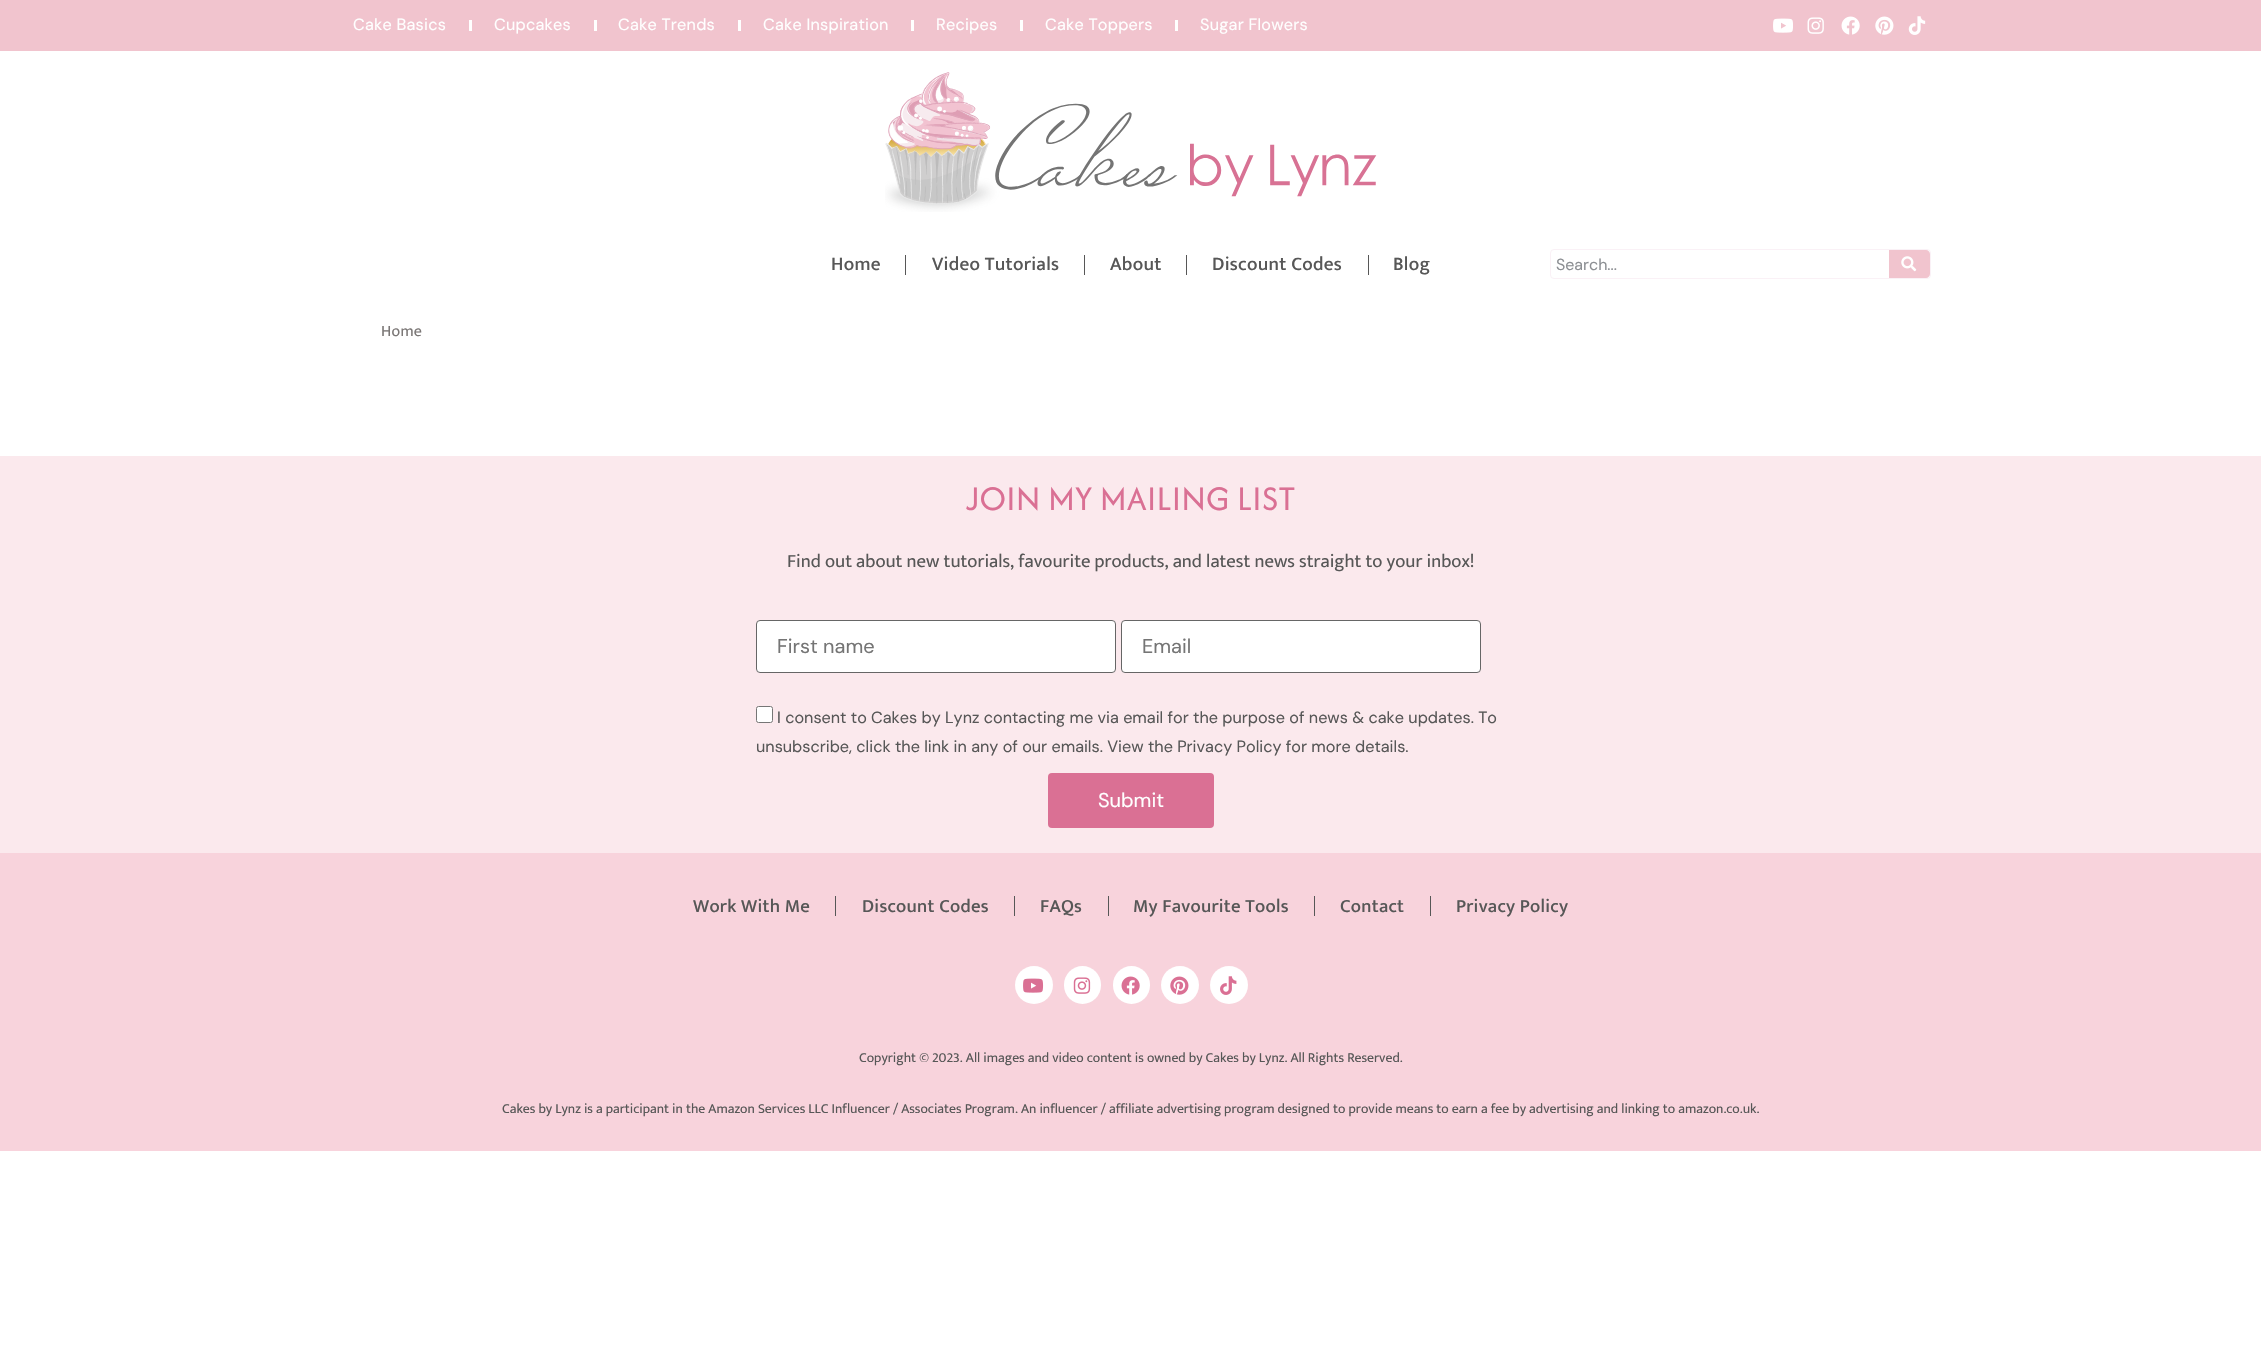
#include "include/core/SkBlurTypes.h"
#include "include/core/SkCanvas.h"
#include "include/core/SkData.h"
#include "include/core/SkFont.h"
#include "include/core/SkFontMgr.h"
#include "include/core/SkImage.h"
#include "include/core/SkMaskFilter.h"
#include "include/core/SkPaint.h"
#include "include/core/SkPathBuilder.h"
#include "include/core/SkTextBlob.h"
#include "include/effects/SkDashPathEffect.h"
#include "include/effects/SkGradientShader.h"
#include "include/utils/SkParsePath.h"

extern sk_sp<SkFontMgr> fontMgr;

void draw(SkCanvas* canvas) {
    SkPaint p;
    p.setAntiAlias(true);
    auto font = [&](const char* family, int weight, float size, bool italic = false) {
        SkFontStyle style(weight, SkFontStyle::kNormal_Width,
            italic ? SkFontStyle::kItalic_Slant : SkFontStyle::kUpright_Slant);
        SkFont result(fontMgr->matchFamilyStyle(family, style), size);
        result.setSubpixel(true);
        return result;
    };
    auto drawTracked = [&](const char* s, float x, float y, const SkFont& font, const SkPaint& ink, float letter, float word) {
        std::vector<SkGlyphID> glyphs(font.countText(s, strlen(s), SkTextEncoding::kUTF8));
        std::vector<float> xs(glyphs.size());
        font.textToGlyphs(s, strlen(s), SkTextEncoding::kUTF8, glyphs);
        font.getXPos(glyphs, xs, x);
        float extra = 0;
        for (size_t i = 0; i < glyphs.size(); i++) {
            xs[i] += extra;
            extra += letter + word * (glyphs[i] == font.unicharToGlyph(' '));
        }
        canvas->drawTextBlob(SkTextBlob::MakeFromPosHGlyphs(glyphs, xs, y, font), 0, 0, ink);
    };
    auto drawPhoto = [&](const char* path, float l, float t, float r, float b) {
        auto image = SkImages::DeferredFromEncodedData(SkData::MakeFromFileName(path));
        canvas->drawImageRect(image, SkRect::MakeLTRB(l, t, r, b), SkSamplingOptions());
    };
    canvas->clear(0xFFFFFFFF);
    p.setColor(0xFFF1C4CE);
    canvas->drawRect(SkRect::MakeLTRB(0, 0, 2261, 51), p);
    auto font1 = font("DM Sans", 400, 16.25f);
    p.setColor(0xFFFFFFFF);
    drawTracked("Cake Basics", 353, 30, font1, p, 0.25f, 0);
    canvas->drawRect(SkRect::MakeLTRB(469, 20, 472, 31), p);
    drawTracked("Cupcakes", 494, 30, font1, p, 0.25f, 0);
    canvas->drawRect(SkRect::MakeLTRB(594, 20, 597, 31), p);
    drawTracked("Cake Trends", 618, 30, font1, p, 0.25f, 0);
    canvas->drawRect(SkRect::MakeLTRB(738, 20, 741, 31), p);
    drawTracked("Cake Inspiration", 763, 30, font1, p, 0.25f, 0);
    canvas->drawRect(SkRect::MakeLTRB(911, 20, 914, 31), p);
    drawTracked("Recipes", 936, 30, font1, p, 0.25f, 0);
    canvas->drawRect(SkRect::MakeLTRB(1020, 20, 1023, 31), p);
    drawTracked("Cake Toppers", 1045, 30, font1, p, 0.25f, 0);
    canvas->drawRect(SkRect::MakeLTRB(1175, 20, 1178, 31), p);
    drawTracked("Sugar Flowers", 1200, 30, font1, p, 0.25f, 0);
    drawPhoto("media/1.png", 1773, 18, 1793, 33);
    drawPhoto("media/2.png", 1807, 17, 1824, 34);
    drawPhoto("media/3.png", 1841, 16, 1860, 35);
    drawPhoto("media/4.png", 1875, 16, 1894, 35);
    drawPhoto("media/5.png", 1908, 16, 1926, 35);
    drawPhoto("media/6.png", 885, 72, 1377, 212);
    auto font2 = font("Mukta", 500, 19.25f);
    p.setColor(0xFF575757);
    drawTracked("Home", 831, 270, font2, p, 0.25f, 0);
    canvas->drawRect(SkRect::MakeLTRB(905, 255, 906, 275), p);
    drawTracked("Video Tutorials", 932, 270, font2, p, 0.25f, 0);
    canvas->drawRect(SkRect::MakeLTRB(1084, 255, 1085, 275), p);
    drawTracked("About", 1110, 270, font2, p, 0.25f, 0);
    canvas->drawRect(SkRect::MakeLTRB(1186, 255, 1187, 275), p);
    drawTracked("Discount Codes", 1212, 270, font2, p, 0.25f, 0);
    canvas->drawRect(SkRect::MakeLTRB(1368, 255, 1369, 275), p);
    drawTracked("Blog", 1393, 270, font2, p, 0.25f, 0);
    p.setStyle(SkPaint::kStroke_Style);
    p.setStrokeWidth(1);
    p.setColor(0xFFFAF1F6);
    canvas->drawRoundRect(SkRect::MakeLTRB(1550.5f, 249.5f, 1930.5f, 278.5f), 3.5f, 3.5f, p);
    auto font3 = font("DM Sans", 400, 16);
    p.setStyle(SkPaint::kFill_Style);
    p.setColor(0xFF8C8F93);
    canvas->drawString("Search...", 1556, 270, font3, p);
    p.setColor(0xFFF1C4CE);
    canvas->drawPath(SkPathBuilder().moveTo(1889, 250).lineTo(1926, 250).cubicTo(1928, 250, 1930, 252, 1930, 254).lineTo(1930, 274).cubicTo(1930, 276, 1928, 278, 1926, 278).lineTo(1889, 278).close().detach(), p);
    drawPhoto("media/7.png", 1901, 256, 1917, 272);
    auto font4 = font("Mukta", 400, 16);
    p.setColor(0xFF7B7776);
    drawTracked("Home", 381, 336, font4, p, 0.25f, 0);
    p.setColor(0xFFFBE9ED);
    canvas->drawRect(SkRect::MakeLTRB(0, 456, 2261, 853), p);
    auto font5 = font("Afacad", 400, 36);
    p.setColor(0xFFDA7094);
    canvas->drawString("JOIN MY MAILING LIST", 966, 510, font5, p);
    auto font6 = font("Mukta", 400, 18.75f);
    p.setColor(0xFF575757);
    canvas->drawString("Find out about new tutorials, favourite products, and latest news straight to your inbox!", 787, 567, font6, p);
    p.setColor(0xFFFFFFFF);
    canvas->drawRoundRect(SkRect::MakeLTRB(756.5f, 620.5f, 1115.5f, 672.5f), 3.5f, 3.5f, p);
    p.setStyle(SkPaint::kStroke_Style);
    p.setColor(0xFF666666);
    canvas->drawRoundRect(SkRect::MakeLTRB(756.5f, 620.5f, 1115.5f, 672.5f), 3.5f, 3.5f, p);
    auto font7 = font("DM Sans", 400, 20);
    p.setStyle(SkPaint::kFill_Style);
    p.setColor(0xFF757575);
    canvas->drawString("First name", 777, 653, font7, p);
    p.setColor(0xFFFFFFFF);
    canvas->drawRoundRect(SkRect::MakeLTRB(1121.5f, 620.5f, 1480.5f, 672.5f), 3.5f, 3.5f, p);
    p.setStyle(SkPaint::kStroke_Style);
    p.setColor(0xFF666666);
    canvas->drawRoundRect(SkRect::MakeLTRB(1121.5f, 620.5f, 1480.5f, 672.5f), 3.5f, 3.5f, p);
    p.setStyle(SkPaint::kFill_Style);
    p.setColor(0xFF757575);
    canvas->drawString("Email", 1142, 653, font7, p);
    p.setColor(0xFFFFFFFF);
    canvas->drawRoundRect(SkRect::MakeLTRB(756.5f, 706.5f, 772.5f, 722.5f), 2, 2, p);
    p.setStyle(SkPaint::kStroke_Style);
    p.setColor(0xFF767676);
    canvas->drawRoundRect(SkRect::MakeLTRB(756.5f, 706.5f, 772.5f, 722.5f), 2, 2, p);
    p.setStyle(SkPaint::kFill_Style);
    p.setColor(0xFF575757);
    canvas->drawString("I consent to Cakes by Lynz contacting me via email for the purpose of news & cake updates. To", 777, 723, font1, p);
    canvas->drawString("unsubscribe, click the link in any of our emails. View the Privacy Policy for more details.", 756, 752, font1, p);
    p.setColor(0xFFDA7094);
    canvas->drawRoundRect(SkRect::MakeLTRB(1048, 773, 1214, 828), 4, 4, p);
    p.setColor(0xFFFFFFFF);
    canvas->drawString("Submit", 1098, 807, font7, p);
    p.setColor(0xFFF8D3DC);
    canvas->drawRect(SkRect::MakeLTRB(0, 853, 2261, 1151), p);
    auto font8 = font("Mukta", 500, 18.75f);
    p.setColor(0xFF575757);
    drawTracked("Work With Me", 693, 912, font8, p, 0.25f, 0);
    canvas->drawRect(SkRect::MakeLTRB(835, 896, 836, 916), p);
    drawTracked("Discount Codes", 862, 912, font8, p, 0.25f, 0);
    canvas->drawRect(SkRect::MakeLTRB(1014, 896, 1015, 916), p);
    drawTracked("FAQs", 1040, 912, font8, p, 0.25f, 0);
    canvas->drawRect(SkRect::MakeLTRB(1108, 896, 1109, 916), p);
    drawTracked("My Favourite Tools", 1133, 912, font8, p, 0.25f, 0);
    canvas->drawRect(SkRect::MakeLTRB(1314, 896, 1315, 916), p);
    drawTracked("Contact", 1340, 912, font8, p, 0.25f, 0);
    canvas->drawRect(SkRect::MakeLTRB(1430, 896, 1431, 916), p);
    drawTracked("Privacy Policy", 1456, 912, font8, p, 0.25f, 0);
    p.setColor(0xFFFFFFFF);
    canvas->drawCircle(1034, 985, 19, p);
    drawPhoto("media/8.png", 1023, 978, 1044, 993);
    canvas->drawRoundRect(SkRect::MakeLTRB(1064, 966, 1101, 1004), 18.5f, 18.5f, p);
    drawPhoto("media/9.png", 1073, 977, 1091, 994);
    canvas->drawRoundRect(SkRect::MakeLTRB(1113, 966, 1150, 1004), 18.5f, 18.5f, p);
    drawPhoto("media/10.png", 1121, 976, 1140, 995);
    canvas->drawCircle(1180, 985, 19, p);
    drawPhoto("media/11.png", 1170, 976, 1189, 995);
    canvas->drawCircle(1229, 985, 19, p);
    drawPhoto("media/12.png", 1220, 976, 1237, 995);
    auto font9 = font("Mukta", 400, 13.75f);
    p.setColor(0xFF575757);
    canvas->drawString("Copyright © 2023. All images and video content is owned by Cakes by Lynz. All Rights Reserved.", 859, 1062, font9, p);
    canvas->drawString("Cakes by Lynz is a participant in the Amazon Services LLC Influencer / Associates Program. An influencer / affiliate advertising program designed to provide means to earn a fee by advertising and linking to amazon.co.uk.", 502, 1113, font9, p);
}
